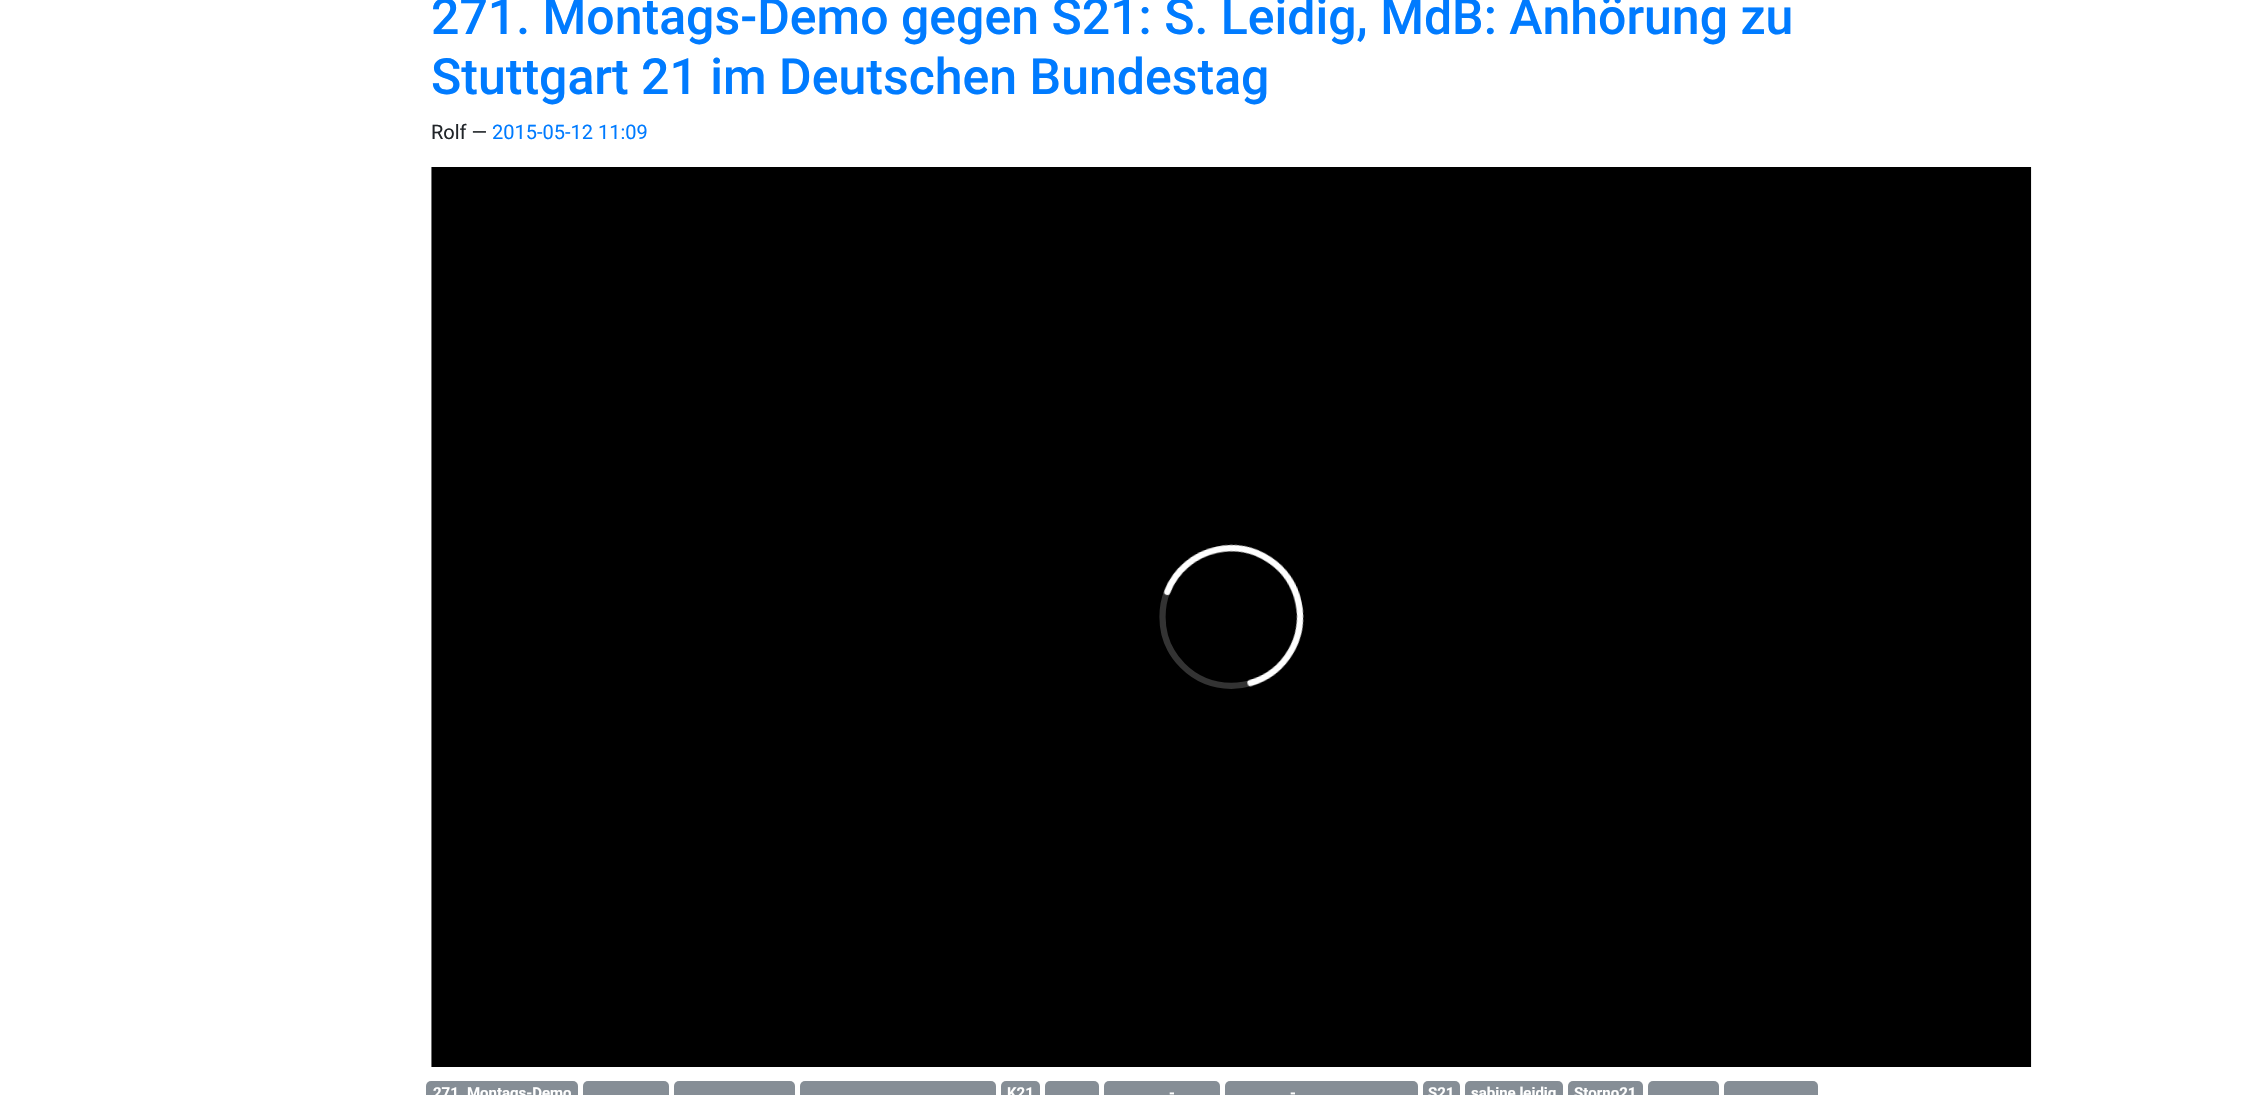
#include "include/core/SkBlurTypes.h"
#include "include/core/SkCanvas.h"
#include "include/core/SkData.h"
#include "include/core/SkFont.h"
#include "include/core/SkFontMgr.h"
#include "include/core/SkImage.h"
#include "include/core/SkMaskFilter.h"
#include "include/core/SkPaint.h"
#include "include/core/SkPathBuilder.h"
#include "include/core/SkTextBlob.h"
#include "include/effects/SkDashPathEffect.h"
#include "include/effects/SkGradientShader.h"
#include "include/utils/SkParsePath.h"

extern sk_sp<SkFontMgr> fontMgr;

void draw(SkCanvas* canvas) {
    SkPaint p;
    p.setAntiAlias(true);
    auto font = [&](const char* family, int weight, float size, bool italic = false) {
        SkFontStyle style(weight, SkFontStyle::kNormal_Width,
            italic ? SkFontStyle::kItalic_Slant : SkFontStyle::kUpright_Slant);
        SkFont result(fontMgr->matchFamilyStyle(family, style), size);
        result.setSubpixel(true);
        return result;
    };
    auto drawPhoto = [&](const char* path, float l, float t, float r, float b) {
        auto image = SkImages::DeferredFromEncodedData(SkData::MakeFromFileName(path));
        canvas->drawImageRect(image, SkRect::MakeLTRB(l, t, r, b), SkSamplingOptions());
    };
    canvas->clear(0xFFFFFFFF);
    auto font1 = font("Roboto", 500, 50);
    p.setColor(0xFF007BFF);
    canvas->drawString("271. Montags-Demo gegen S21: S. Leidig, MdB: Anhörung zu", 431, 34, font1, p);
    canvas->drawString("Stuttgart 21 im Deutschen Bundestag", 431, 94, font1, p);
    auto font2 = font("Roboto", 400, 20);
    p.setColor(0xFF212529);
    canvas->drawString("Rolf —", 431, 139, font2, p);
    p.setColor(0xFF007BFF);
    canvas->drawString("2015-05-12 11:09", 492, 139, font2, p);
    drawPhoto("media/1.png", 431, 167, 2032, 1067);
    p.setColor(0xFF868E96);
    canvas->drawRoundRect(SkRect::MakeLTRB(426, 1081, 578, 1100), 5, 5, p);
    auto font3 = font("Roboto", 700, 15);
    p.setColor(0xFFFFFFFF);
    canvas->drawString("271. Montags-Demo", 433, 1098, font3, p);
    p.setColor(0xFF868E96);
    canvas->drawRoundRect(SkRect::MakeLTRB(583, 1081, 669, 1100), 5, 5, p);
    canvas->drawRoundRect(SkRect::MakeLTRB(674, 1081, 795, 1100), 5, 5, p);
    canvas->drawRoundRect(SkRect::MakeLTRB(800, 1081, 996, 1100), 5, 5, p);
    canvas->drawRoundRect(SkRect::MakeLTRB(1001, 1081, 1040, 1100), 5, 5, p);
    p.setColor(0xFFFFFFFF);
    canvas->drawString("K21", 1007, 1098, font3, p);
    p.setColor(0xFF868E96);
    canvas->drawRoundRect(SkRect::MakeLTRB(1045, 1081, 1099, 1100), 5, 5, p);
    canvas->drawRoundRect(SkRect::MakeLTRB(1104, 1081, 1220, 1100), 5, 5, p);
    p.setColor(0xFFFFFFFF);
    canvas->drawString("-", 1169, 1098, font3, p);
    p.setColor(0xFF868E96);
    canvas->drawRoundRect(SkRect::MakeLTRB(1225, 1081, 1418, 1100), 5, 5, p);
    p.setColor(0xFFFFFFFF);
    canvas->drawString("-", 1290, 1098, font3, p);
    p.setColor(0xFF868E96);
    canvas->drawRoundRect(SkRect::MakeLTRB(1423, 1081, 1460, 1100), 5, 5, p);
    p.setColor(0xFFFFFFFF);
    canvas->drawString("S21", 1428, 1098, font3, p);
    p.setColor(0xFF868E96);
    canvas->drawRoundRect(SkRect::MakeLTRB(1465, 1081, 1563, 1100), 5, 5, p);
    p.setColor(0xFFFFFFFF);
    canvas->drawString("sabine leidig", 1471, 1098, font3, p);
    p.setColor(0xFF868E96);
    canvas->drawRoundRect(SkRect::MakeLTRB(1568, 1081, 1643, 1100), 5, 5, p);
    p.setColor(0xFFFFFFFF);
    canvas->drawString("Storno21", 1574, 1098, font3, p);
    p.setColor(0xFF868E96);
    canvas->drawRoundRect(SkRect::MakeLTRB(1648, 1081, 1719, 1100), 5, 5, p);
    canvas->drawRoundRect(SkRect::MakeLTRB(1724, 1081, 1818, 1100), 5, 5, p);
}
